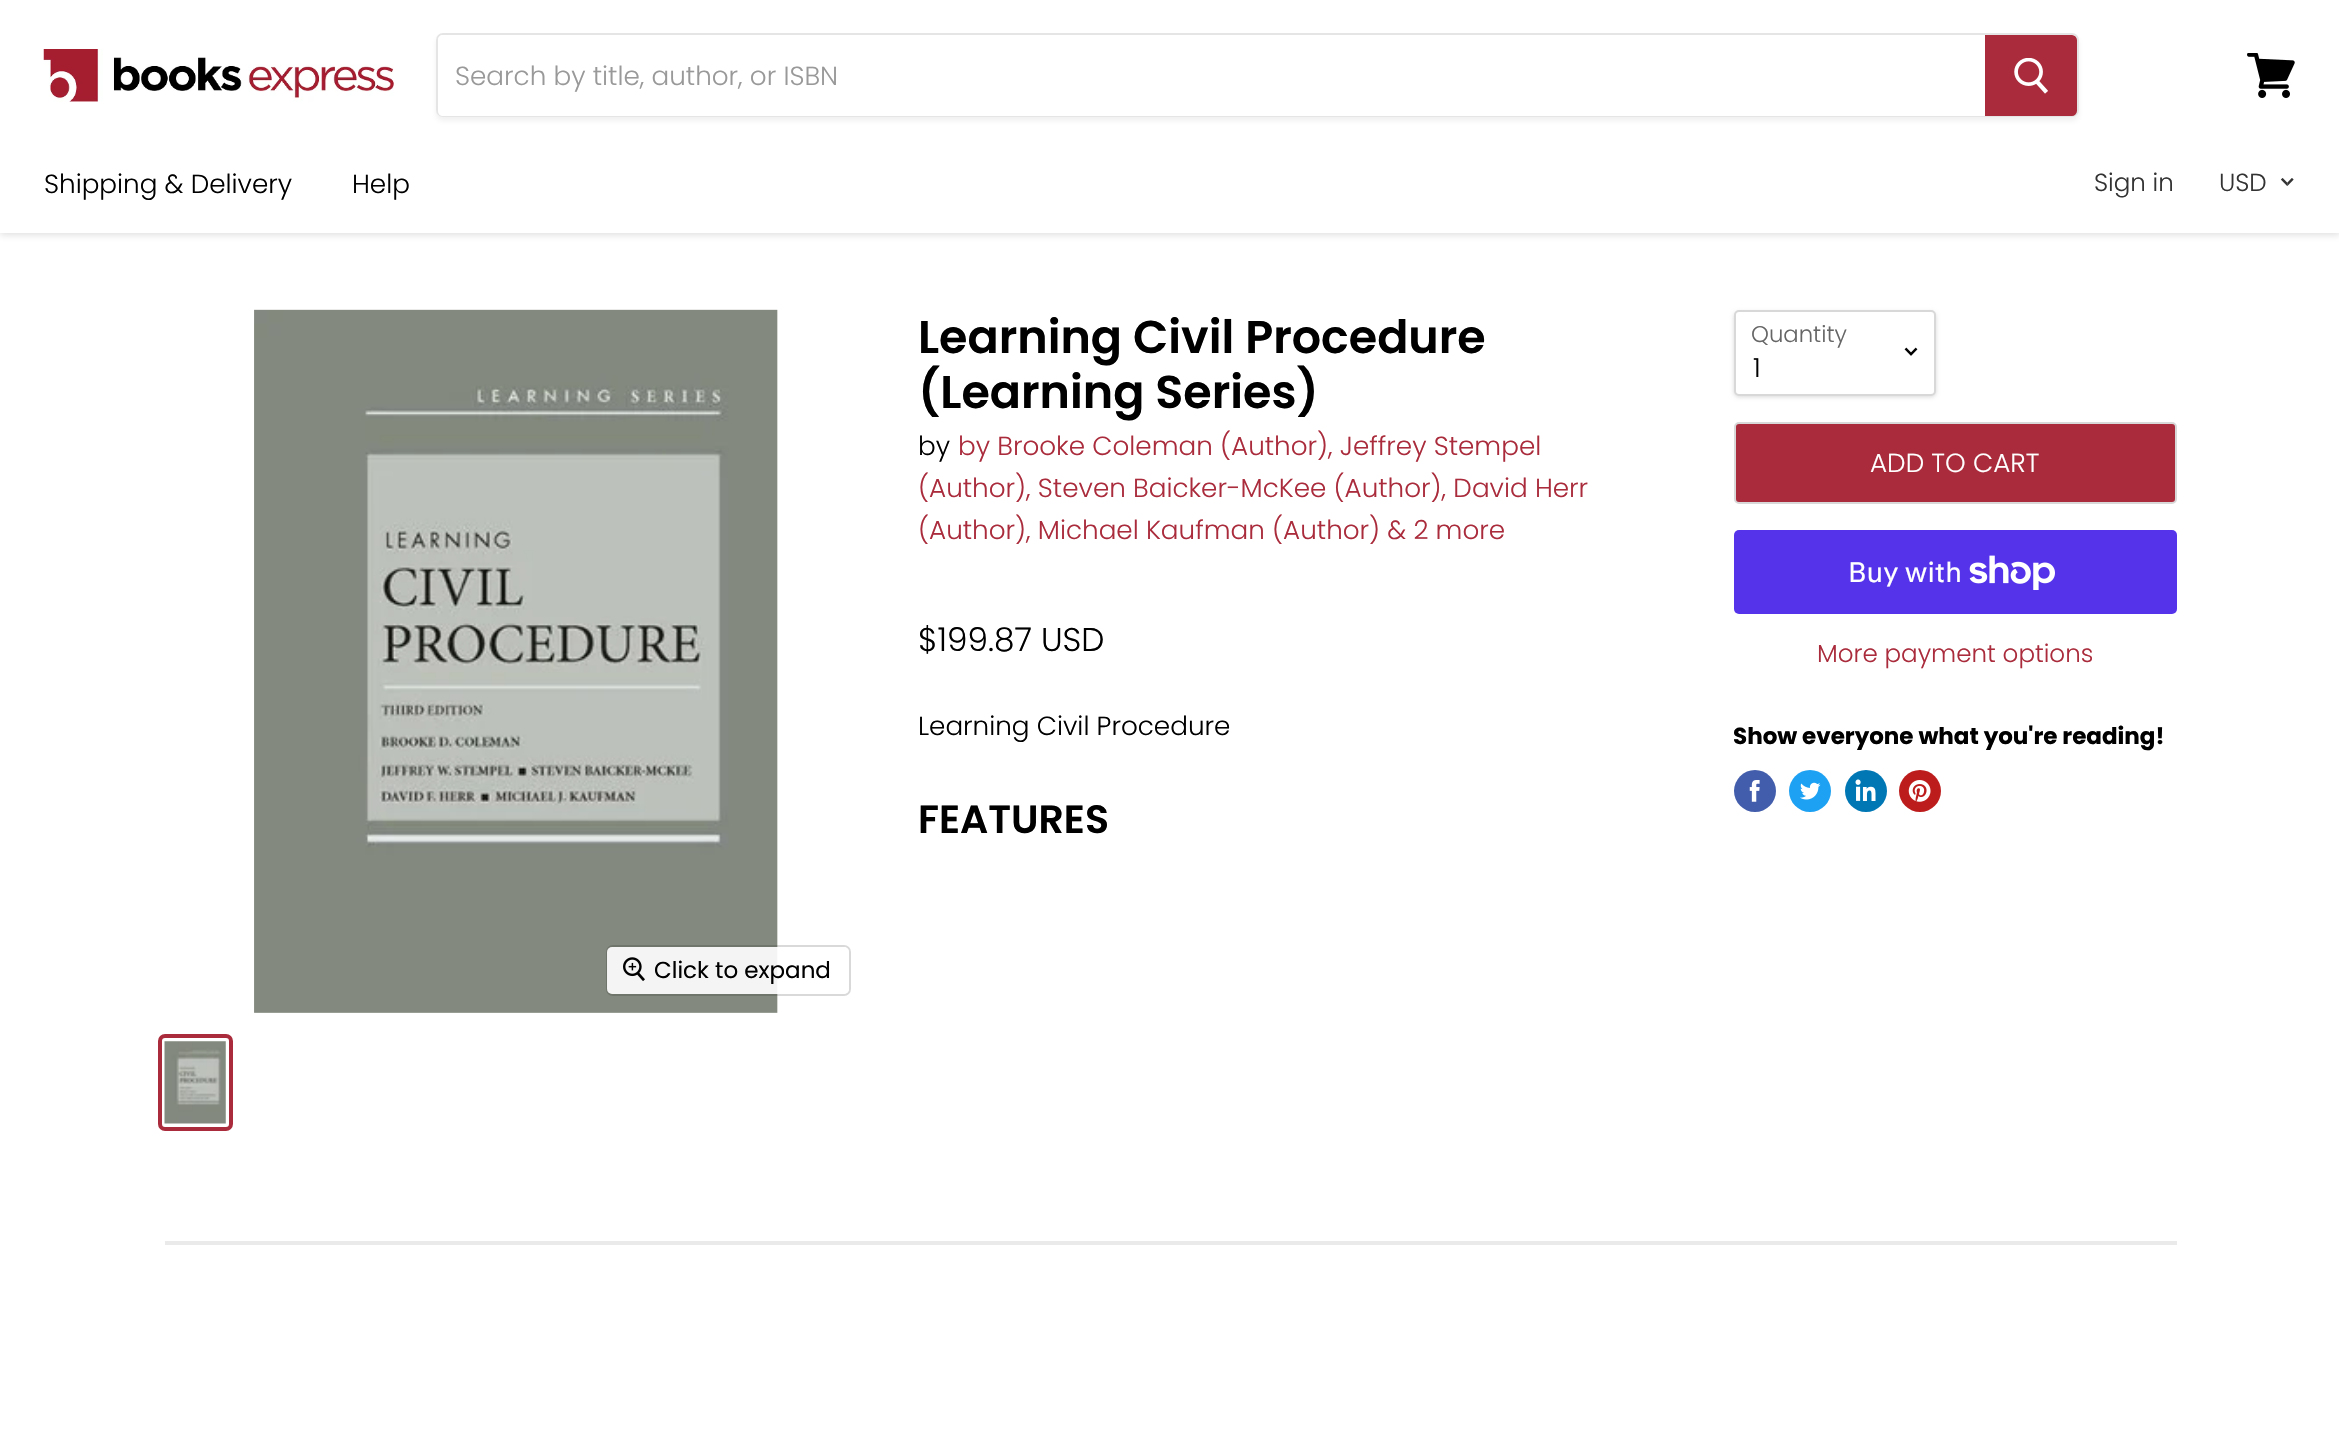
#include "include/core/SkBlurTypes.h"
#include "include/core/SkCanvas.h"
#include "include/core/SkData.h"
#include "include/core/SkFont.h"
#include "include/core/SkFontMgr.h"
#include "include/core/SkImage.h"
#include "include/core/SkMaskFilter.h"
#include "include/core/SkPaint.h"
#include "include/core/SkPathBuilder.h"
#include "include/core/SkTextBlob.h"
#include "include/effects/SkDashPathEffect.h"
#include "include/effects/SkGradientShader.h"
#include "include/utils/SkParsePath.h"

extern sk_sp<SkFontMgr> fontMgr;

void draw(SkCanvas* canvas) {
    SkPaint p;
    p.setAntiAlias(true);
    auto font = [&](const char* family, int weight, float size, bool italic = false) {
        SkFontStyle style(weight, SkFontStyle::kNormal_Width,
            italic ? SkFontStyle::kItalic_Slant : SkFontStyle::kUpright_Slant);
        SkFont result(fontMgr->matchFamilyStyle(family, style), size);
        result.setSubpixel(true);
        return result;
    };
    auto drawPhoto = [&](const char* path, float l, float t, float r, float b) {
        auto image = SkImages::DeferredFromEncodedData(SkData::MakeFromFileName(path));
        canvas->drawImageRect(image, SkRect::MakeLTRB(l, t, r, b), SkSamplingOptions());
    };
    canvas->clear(0xFFFFFFFF);
    p.setColor(0x407F7F7F);
    p.setMaskFilter(SkMaskFilter::MakeBlur(kNormal_SkBlurStyle, 3.5f));
    canvas->drawRect(SkRect::MakeLTRB(0, 2, 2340, 235), p);
    p.setMaskFilter(nullptr);
    p.setColor(0xFFFFFFFF);
    canvas->drawRect(SkRect::MakeLTRB(0, 0, 2339, 233), p);
    drawPhoto("media/1.png", 43, 49, 394, 102);
    canvas->save();
    canvas->clipPath(SkPathBuilder(SkPathFillType::kEvenOdd).moveTo(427, 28).lineTo(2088, 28).lineTo(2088, 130).lineTo(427, 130).close().moveTo(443, 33).lineTo(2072, 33).cubicTo(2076, 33, 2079, 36, 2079, 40).lineTo(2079, 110).cubicTo(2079, 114, 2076, 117, 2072, 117).lineTo(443, 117).cubicTo(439, 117, 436, 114, 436, 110).lineTo(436, 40).cubicTo(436, 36, 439, 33, 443, 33).close().detach(), true);
    p.setColor(0x1C7F7F7F);
    p.setMaskFilter(SkMaskFilter::MakeBlur(kNormal_SkBlurStyle, 2.5f));
    canvas->drawRoundRect(SkRect::MakeLTRB(436, 37, 2079, 121), 7, 7, p);
    p.setMaskFilter(nullptr);
    canvas->restore();
    p.setStyle(SkPaint::kStroke_Style);
    p.setStrokeWidth(2);
    p.setColor(0x337F7F7F);
    canvas->drawRoundRect(SkRect::MakeLTRB(437, 34, 2078, 116), 6, 6, p);
    p.setStyle(SkPaint::kFill_Style);
    p.setColor(0xFFFFFFFF);
    canvas->drawPath(SkPathBuilder().moveTo(443, 35).lineTo(1985, 35).lineTo(1985, 116).lineTo(443, 116).cubicTo(440, 116, 438, 114, 438, 111).lineTo(438, 40).cubicTo(438, 37, 440, 35, 443, 35).close().detach(), p);
    auto font1 = font("Poppins", 300, 26.25f);
    p.setColor(0xFF999999);
    canvas->drawString("Search by title, author, or ISBN", 455, 85, font1, p);
    p.setColor(0xFFAA2C3C);
    canvas->drawPath(SkPathBuilder().moveTo(1986, 36).lineTo(2072, 36).cubicTo(2074, 36, 2076, 38, 2076, 40).lineTo(2076, 111).cubicTo(2076, 113, 2074, 115, 2072, 115).lineTo(1986, 115).close().detach(), p);
    p.setStyle(SkPaint::kStroke_Style);
    canvas->drawPath(SkPathBuilder().moveTo(1986, 36).lineTo(2072, 36).cubicTo(2074, 36, 2076, 38, 2076, 40).lineTo(2076, 111).cubicTo(2076, 113, 2074, 115, 2072, 115).lineTo(1986, 115).close().detach(), p);
    drawPhoto("media/2.png", 2014, 58, 2048, 94);
    drawPhoto("media/3.png", 2247, 53, 2295, 98);
    p.setStyle(SkPaint::kFill_Style);
    p.setColor(0xFF000000);
    canvas->drawString("Shipping & Delivery", 44, 193, font1, p);
    canvas->drawString("Help", 352, 193, font1, p);
    auto font2 = font("Poppins", 300, 24.6f);
    p.setColor(0xFF333333);
    canvas->drawString("Sign in", 2094, 191, font2, p);
    canvas->drawString("USD", 2219, 191, font2, p);
    drawPhoto("media/4.png", 2280, 178, 2294, 186);
    auto font3 = font("Poppins", 600, 46);
    p.setColor(0xFF000000);
    canvas->drawString("Learning Civil Procedure", 918, 353, font3, p);
    canvas->drawString("(Learning Series)", 918, 408, font3, p);
    canvas->drawString("by", 918, 455, font1, p);
    p.setColor(0xFFAA2C3C);
    {
        const struct { const char* s; float x, y; } items[] = {
            {"by Brooke Coleman (Author), Jeffrey Stempel", 958, 455},
            {"(Author), Steven Baicker-McKee (Author), David Herr", 918, 497},
            {"(Author), Michael Kaufman (Author) & 2 more", 918, 539},
        };
        for (auto [s, x, y] : items) {
            canvas->drawString(s, x, y, font1, p);
        }
    }
    auto font4 = font("Poppins", 300, 32.75f);
    p.setColor(0xFF000000);
    canvas->drawString("$199.87 USD", 918, 651, font4, p);
    canvas->drawString("Learning Civil Procedure", 918, 735, font1, p);
    auto font5 = font("Poppins", 600, 39.5f);
    canvas->drawString("FEATURES", 918, 833, font5, p);
    p.setColor(0x26000000);
    p.setMaskFilter(SkMaskFilter::MakeBlur(kNormal_SkBlurStyle, 2));
    canvas->drawRoundRect(SkRect::MakeLTRB(1734, 312, 1936, 397), 5, 5, p);
    p.setMaskFilter(nullptr);
    p.setColor(0xFFFFFFFF);
    canvas->drawRoundRect(SkRect::MakeLTRB(1735, 311, 1935, 395), 4, 4, p);
    p.setStyle(SkPaint::kStroke_Style);
    p.setColor(0xFFD8D8D8);
    canvas->drawRoundRect(SkRect::MakeLTRB(1735, 311, 1935, 395), 4, 4, p);
    auto font6 = font("Poppins", 300, 22.75f);
    p.setStyle(SkPaint::kFill_Style);
    p.setColor(0xFF666666);
    canvas->drawString("Quantity", 1751, 342, font6, p);
    drawPhoto("media/5.png", 1904, 347, 1918, 356);
    p.setColor(0xFF000000);
    canvas->drawString("1", 1753, 377, font1, p);
    p.setColor(0xFFAA2C3C);
    canvas->drawRoundRect(SkRect::MakeLTRB(1735, 423, 2176, 503), 4, 4, p);
    p.setStyle(SkPaint::kStroke_Style);
    p.setColor(0xFFD8D8D8);
    canvas->drawRoundRect(SkRect::MakeLTRB(1735, 423, 2176, 503), 4, 4, p);
    p.setStyle(SkPaint::kFill_Style);
    p.setColor(0xFFFFFFFF);
    canvas->drawString("ADD TO CART", 1870, 472, font1, p);
    p.setColor(0xFF5433EB);
    canvas->drawRoundRect(SkRect::MakeLTRB(1734, 530, 2177, 614), 5, 5, p);
    auto font7 = font("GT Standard", 400, 28);
    p.setColor(0xFFFFFFFF);
    canvas->drawString("Buy with", 1848, 582, font7, p);
    drawPhoto("media/6.png", 1969, 555, 2055, 590);
    p.setColor(0xFFAA2C3C);
    canvas->drawString("More payment options", 1817, 662, font2, p);
    auto font8 = font("Poppins", 700, 23);
    p.setColor(0xFF000000);
    canvas->drawString("Show everyone what you're reading!", 1733, 744, font8, p);
    p.setColor(0xFF425DAB);
    canvas->drawCircle(1755, 791, 21, p);
    drawPhoto("media/7.png", 1749, 780, 1760, 802);
    p.setColor(0xFF1DA1F2);
    canvas->drawCircle(1810, 791, 21, p);
    drawPhoto("media/8.png", 1800, 782, 1821, 800);
    p.setColor(0xFF0077B5);
    canvas->drawCircle(1866, 791, 21, p);
    drawPhoto("media/9.png", 1855, 779, 1876, 801);
    p.setColor(0xFFBD1C1C);
    canvas->drawCircle(1920, 791, 21, p);
    drawPhoto("media/10.png", 1908, 780, 1931, 802);
    drawPhoto("media/11.png", 254, 309, 778, 1013);
    p.setStyle(SkPaint::kStroke_Style);
    p.setColor(0x26000000);
    canvas->drawRoundRect(SkRect::MakeLTRB(607, 946, 850, 995), 6, 6, p);
    p.setStyle(SkPaint::kFill_Style);
    p.setColor(0xE6FFFFFF);
    canvas->drawRoundRect(SkRect::MakeLTRB(607, 947, 849, 994), 5, 5, p);
    drawPhoto("media/12.png", 623, 957, 645, 981);
    auto font9 = font("Poppins", 400, 23);
    p.setColor(0xFF000000);
    canvas->drawString("Click to expand", 654, 978, font9, p);
    p.setStyle(SkPaint::kStroke_Style);
    p.setStrokeWidth(4);
    p.setColor(0xFFAA2C3C);
    canvas->drawRoundRect(SkRect::MakeLTRB(160, 1036, 231, 1129), 5, 5, p);
    drawPhoto("media/13.png", 164, 1041, 226, 1124);
    p.setStyle(SkPaint::kFill_Style);
    p.setColor(0x297F7F7F);
    canvas->drawRect(SkRect::MakeLTRB(165, 1241, 2177, 1245), p);
}
